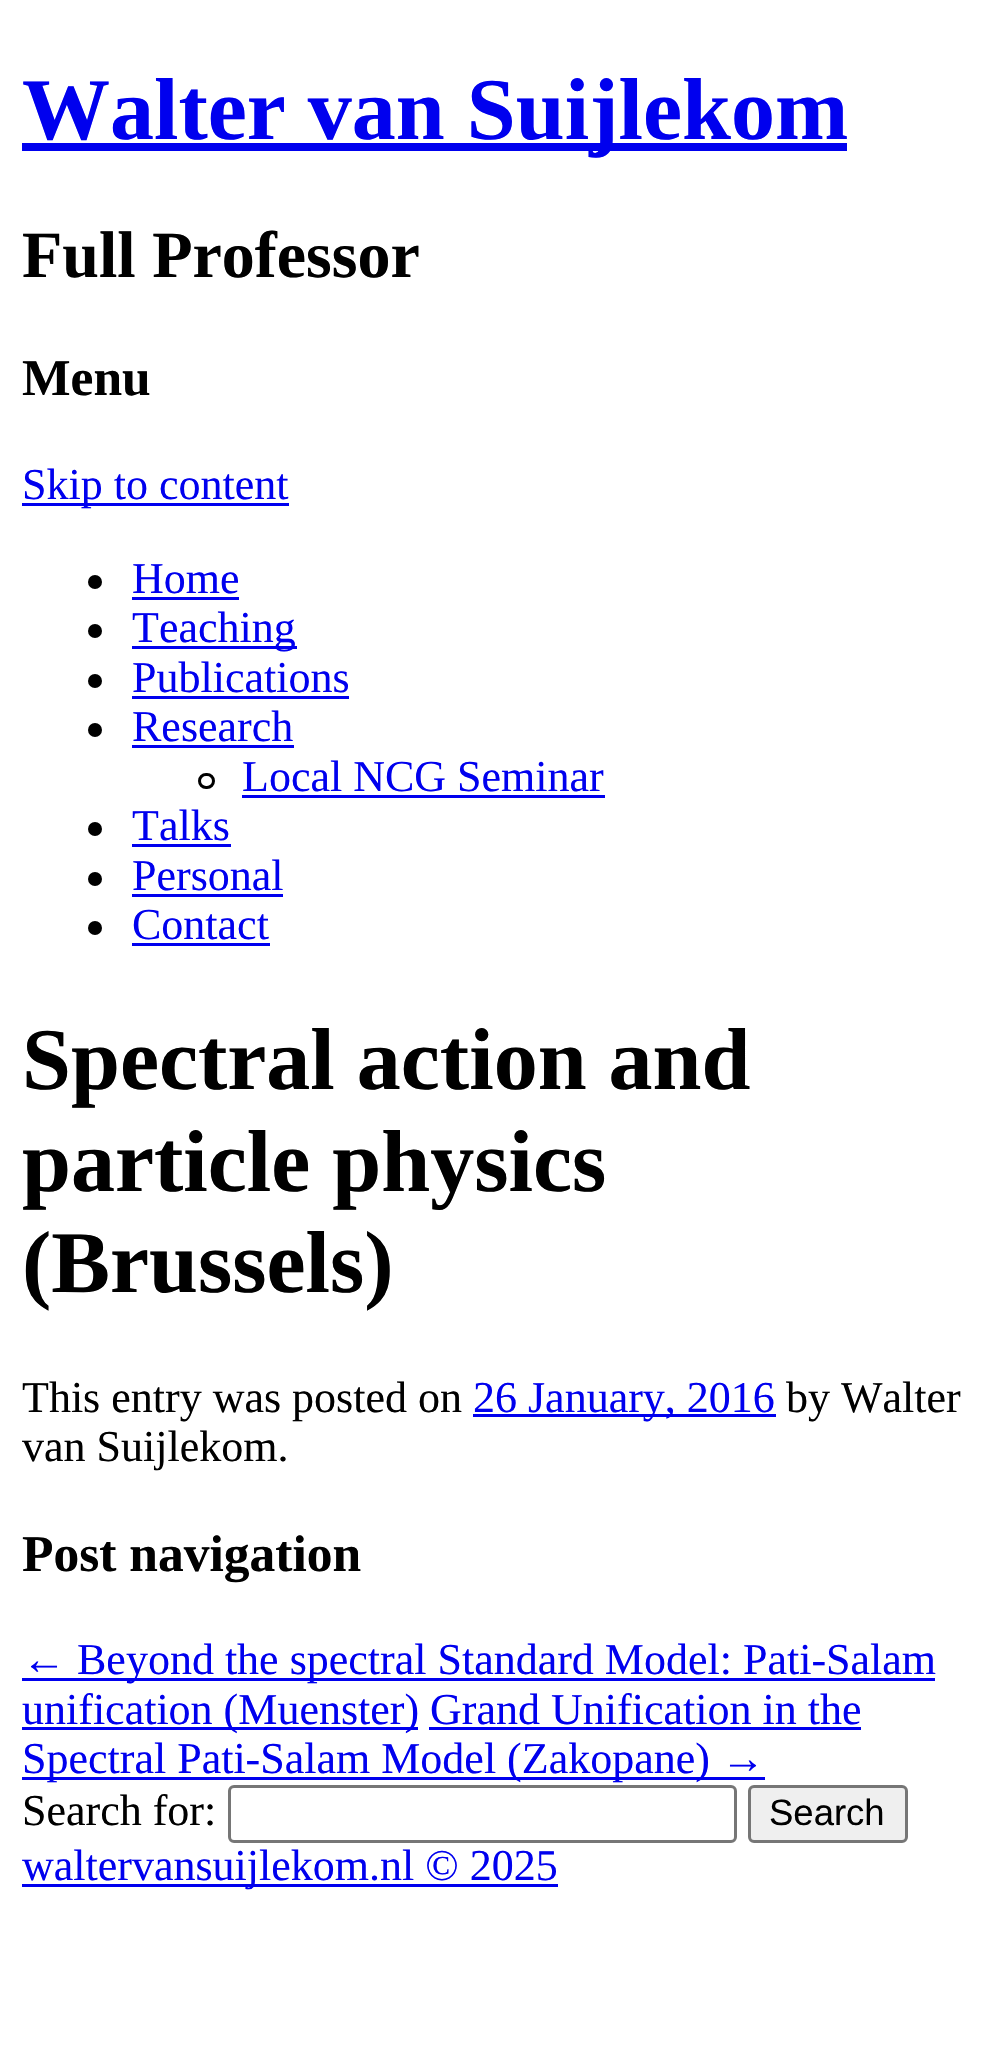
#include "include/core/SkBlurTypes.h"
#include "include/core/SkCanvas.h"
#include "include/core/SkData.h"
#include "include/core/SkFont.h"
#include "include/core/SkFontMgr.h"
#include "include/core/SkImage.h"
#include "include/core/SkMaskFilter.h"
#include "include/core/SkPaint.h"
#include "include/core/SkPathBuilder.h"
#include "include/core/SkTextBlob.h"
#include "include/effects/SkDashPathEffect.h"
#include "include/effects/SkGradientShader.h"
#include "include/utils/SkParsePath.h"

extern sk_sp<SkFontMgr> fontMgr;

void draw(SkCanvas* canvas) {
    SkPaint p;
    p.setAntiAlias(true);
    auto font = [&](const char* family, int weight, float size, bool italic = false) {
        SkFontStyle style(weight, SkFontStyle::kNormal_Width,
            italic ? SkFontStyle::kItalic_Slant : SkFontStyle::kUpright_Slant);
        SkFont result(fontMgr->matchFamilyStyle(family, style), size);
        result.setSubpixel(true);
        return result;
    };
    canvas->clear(0xFFFFFFFF);
    p.setColor(0xFF0000EE);
    canvas->drawRect(SkRect::MakeLTRB(22, 143, 847, 151), p);
    auto font1 = font("Liberation Serif", 700, 88);
    canvas->drawString("Walter van Suijlekom", 22, 139, font1, p);
    auto font2 = font("Liberation Serif", 700, 66);
    p.setColor(0xFF000000);
    canvas->drawString("Full Professor", 22, 277, font2, p);
    auto font3 = font("Liberation Serif", 700, 51.5f);
    canvas->drawString("Menu", 22, 395, font3, p);
    p.setColor(0xFF0000EE);
    canvas->drawRect(SkRect::MakeLTRB(22, 503, 289, 506), p);
    auto font4 = font("Liberation Serif", 400, 44);
    canvas->drawString("Skip to content", 22, 499, font4, p);
    p.setColor(0xFF000000);
    canvas->drawCircle(95, 582, 7, p);
    p.setColor(0xFF0000EE);
    canvas->drawString("Home", 132, 593, font4, p);
    canvas->drawRect(SkRect::MakeLTRB(132, 597, 239, 600), p);
    p.setColor(0xFF000000);
    canvas->drawCircle(95, 631, 7, p);
    p.setColor(0xFF0000EE);
    canvas->drawRect(SkRect::MakeLTRB(132, 646, 297, 649), p);
    canvas->drawString("Teaching", 132, 642, font4, p);
    p.setColor(0xFF000000);
    canvas->drawCircle(95, 681, 7, p);
    p.setColor(0xFF0000EE);
    canvas->drawString("Publications", 132, 692, font4, p);
    canvas->drawRect(SkRect::MakeLTRB(132, 696, 349, 699), p);
    p.setColor(0xFF000000);
    canvas->drawCircle(95, 730, 7, p);
    p.setColor(0xFF0000EE);
    canvas->drawString("Research", 132, 741, font4, p);
    canvas->drawRect(SkRect::MakeLTRB(132, 745, 294, 748), p);
    p.setStyle(SkPaint::kStroke_Style);
    p.setStrokeWidth(3);
    p.setColor(0xFF000000);
    canvas->drawRoundRect(SkRect::MakeLTRB(199.5f, 774.5f, 213.5f, 787.5f), 6.5f, 6.5f, p);
    p.setStyle(SkPaint::kFill_Style);
    p.setColor(0xFF0000EE);
    canvas->drawString("Local NCG Seminar", 242, 791, font4, p);
    canvas->drawRect(SkRect::MakeLTRB(242, 795, 605, 798), p);
    p.setColor(0xFF000000);
    canvas->drawCircle(95, 829, 7, p);
    p.setColor(0xFF0000EE);
    canvas->drawString("Talks", 132, 840, font4, p);
    canvas->drawRect(SkRect::MakeLTRB(132, 844, 231, 847), p);
    p.setColor(0xFF000000);
    canvas->drawCircle(95, 879, 7, p);
    p.setColor(0xFF0000EE);
    canvas->drawString("Personal", 132, 890, font4, p);
    canvas->drawRect(SkRect::MakeLTRB(132, 894, 283, 897), p);
    p.setColor(0xFF000000);
    canvas->drawCircle(95, 928, 7, p);
    p.setColor(0xFF0000EE);
    canvas->drawString("Contact", 132, 939, font4, p);
    canvas->drawRect(SkRect::MakeLTRB(132, 943, 270, 946), p);
    p.setColor(0xFF000000);
    {
        const struct { const char* s; float x, y; } items[] = {
            {"Spectral action and", 22, 1089},
            {"particle physics", 22, 1191},
            {"(Brussels)", 22, 1292},
        };
        for (auto [s, x, y] : items) {
            canvas->drawString(s, x, y, font1, p);
        }
    }
    canvas->drawString("This entry was posted on", 22, 1412, font4, p);
    p.setColor(0xFF0000EE);
    canvas->drawRect(SkRect::MakeLTRB(473, 1414, 776, 1417), p);
    canvas->drawString("26 January, 2016", 473, 1412, font4, p);
    p.setColor(0xFF000000);
    canvas->drawString("by Walter", 786, 1412, font4, p);
    canvas->drawString("van Suijlekom.", 22, 1461, font4, p);
    canvas->drawString("Post navigation", 22, 1571, font3, p);
    p.setColor(0xFF0000EE);
    canvas->drawRect(SkRect::MakeLTRB(22, 1678, 935, 1681), p);
    canvas->drawString("← Beyond the spectral Standard Model: Pati-Salam", 22, 1674, font4, p);
    canvas->drawRect(SkRect::MakeLTRB(22, 1727, 418, 1730), p);
    canvas->drawString("unification (Muenster) Grand Unification in the", 22, 1724, font4, p);
    canvas->drawRect(SkRect::MakeLTRB(22, 1777, 765, 1780), p);
    canvas->drawString("Spectral Pati-Salam Model (Zakopane) →", 22, 1773, font4, p);
    canvas->drawRect(SkRect::MakeLTRB(429, 1727, 861, 1730), p);
    p.setColor(0xFF000000);
    canvas->drawString("Search for:", 22, 1825, font4, p);
    p.setStyle(SkPaint::kStroke_Style);
    p.setColor(0xFF767676);
    canvas->drawRoundRect(SkRect::MakeLTRB(229.5f, 1786.5f, 735.5f, 1841.5f), 4.5f, 4.5f, p);
    p.setStyle(SkPaint::kFill_Style);
    p.setColor(0xFFEFEFEF);
    canvas->drawRoundRect(SkRect::MakeLTRB(749.5f, 1786.5f, 906.5f, 1841.5f), 4.5f, 4.5f, p);
    p.setStyle(SkPaint::kStroke_Style);
    p.setColor(0xFF767676);
    canvas->drawRoundRect(SkRect::MakeLTRB(749.5f, 1786.5f, 906.5f, 1841.5f), 4.5f, 4.5f, p);
    auto font5 = font("Liberation Sans", 400, 36.5f);
    p.setStyle(SkPaint::kFill_Style);
    p.setColor(0xFF000000);
    canvas->drawString("Search", 769, 1825, font5, p);
    p.setColor(0xFF0000EE);
    canvas->drawRect(SkRect::MakeLTRB(22, 1884, 558, 1887), p);
    canvas->drawString("waltervansuijlekom.nl © 2025", 22, 1880, font4, p);
}
